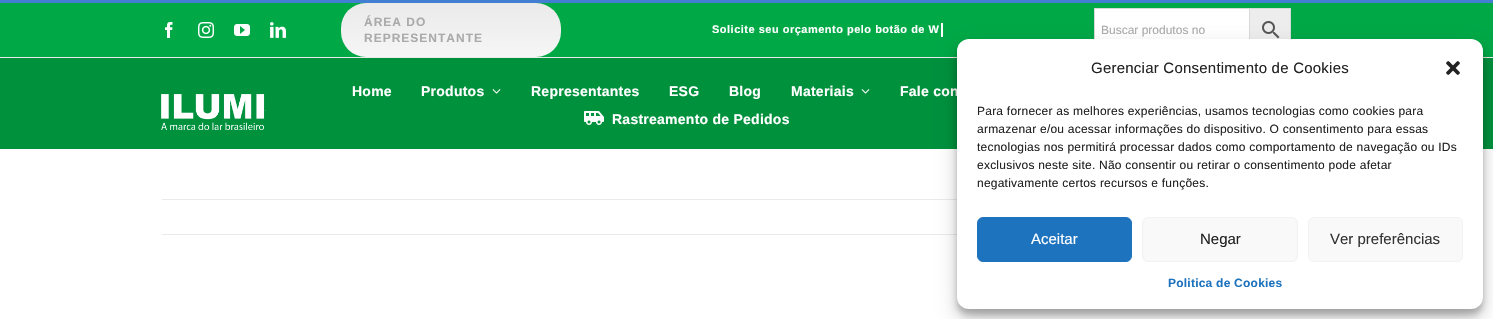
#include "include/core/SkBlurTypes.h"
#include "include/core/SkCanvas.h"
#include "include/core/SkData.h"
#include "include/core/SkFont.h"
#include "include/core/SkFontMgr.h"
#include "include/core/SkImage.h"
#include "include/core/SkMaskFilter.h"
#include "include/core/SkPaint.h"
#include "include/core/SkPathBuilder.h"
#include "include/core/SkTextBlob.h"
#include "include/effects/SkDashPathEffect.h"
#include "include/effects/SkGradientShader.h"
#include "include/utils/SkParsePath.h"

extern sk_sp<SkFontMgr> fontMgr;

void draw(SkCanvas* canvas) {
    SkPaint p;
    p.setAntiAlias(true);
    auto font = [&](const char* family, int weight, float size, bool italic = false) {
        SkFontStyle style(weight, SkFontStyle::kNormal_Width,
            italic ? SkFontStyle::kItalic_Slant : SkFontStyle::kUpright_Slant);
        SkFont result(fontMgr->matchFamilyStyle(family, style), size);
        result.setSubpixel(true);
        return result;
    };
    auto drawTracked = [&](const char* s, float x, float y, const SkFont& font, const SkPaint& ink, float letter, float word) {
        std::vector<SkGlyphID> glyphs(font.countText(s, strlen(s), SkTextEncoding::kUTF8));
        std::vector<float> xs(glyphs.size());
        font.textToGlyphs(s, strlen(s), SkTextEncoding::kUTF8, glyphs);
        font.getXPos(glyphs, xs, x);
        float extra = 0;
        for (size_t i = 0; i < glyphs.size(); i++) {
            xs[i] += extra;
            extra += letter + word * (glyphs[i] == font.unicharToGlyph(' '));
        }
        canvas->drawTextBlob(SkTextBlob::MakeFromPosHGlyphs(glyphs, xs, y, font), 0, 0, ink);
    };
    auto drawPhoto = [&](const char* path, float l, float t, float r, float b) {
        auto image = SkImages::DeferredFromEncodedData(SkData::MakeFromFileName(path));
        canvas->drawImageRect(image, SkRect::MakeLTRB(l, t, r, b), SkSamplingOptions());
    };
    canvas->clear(0xFFFFFFFF);
    p.setColor(0xFF00A846);
    canvas->drawRect(SkRect::MakeLTRB(0, 3, 1493, 57), p);
    p.setColor(0xFF427ED1);
    canvas->drawRect(SkRect::MakeLTRB(0, 0, 1493, 3), p);
    drawPhoto("media/1.png", 165, 22, 173, 38);
    drawPhoto("media/2.png", 198, 22, 214, 38);
    drawPhoto("media/3.png", 234, 24, 250, 36);
    drawPhoto("media/4.png", 270, 22, 286, 38);
    {
        const SkColor colors[] = {0xFFEAEAEA, 0xFFF6F6F6};
        const float stops[] = {0, 1};
        const SkPoint ends[] = {{451, 3}, {451, 57}};
        p.setShader(SkGradientShader::MakeLinear(ends, colors, stops, 2, SkTileMode::kClamp));
        p.setAlpha(255);
    }
    canvas->drawRoundRect(SkRect::MakeLTRB(341, 3, 561, 57), 25, 25, p);
    auto font1 = font("Liberation Sans", 700, 12);
    p.setShader(nullptr);
    p.setColor(0xFFAAAAAA);
    drawTracked("ÁREA DO", 364, 26, font1, p, 1, 0);
    drawTracked("REPRESENTANTE", 364, 42, font1, p, 1, 0);
    auto font2 = font("Liberation Sans", 700, 11);
    p.setColor(0xFFFFFFFF);
    drawTracked("Solicite seu orçamento pelo botão de W", 712, 33, font2, p, 0.5f, 0);
    {
        const struct { float l, t, r, b; SkColor color; } items[] = {
            {941, 23, 943, 37, 0xFFFFFFFF},
            {1095, 9, 1249, 39, 0xFFFFFFFF},
            {1250, 9, 1290, 39, 0xFFEDEDED},
        };
        for (auto [l, t, r, b, color] : items) {
            p.setColor(color);
            canvas->drawRect(SkRect::MakeLTRB(l, t, r, b), p);
        }
    }
    p.setStyle(SkPaint::kStroke_Style);
    p.setStrokeWidth(1);
    p.setColor(0xFFD8D8D8);
    canvas->drawRect(SkRect::MakeLTRB(1249.5f, 8.5f, 1290.5f, 51.5f), p);
    canvas->drawRect(SkRect::MakeLTRB(1094.5f, 8.5f, 1249.5f, 51.5f), p);
    auto font3 = font("Liberation Sans", 400, 12);
    p.setStyle(SkPaint::kFill_Style);
    p.setColor(0xFFAAAAAA);
    canvas->drawString("Buscar produtos no", 1101, 34, font3, p);
    drawPhoto("media/5.png", 1262, 21, 1280, 39);
    p.setColor(0xFF00913D);
    canvas->drawRect(SkRect::MakeLTRB(0, 58, 1493, 149), p);
    p.setColor(0xFFEAEAEA);
    canvas->drawRect(SkRect::MakeLTRB(0, 57, 1493, 58), p);
    drawPhoto("media/6.png", 161, 94, 266, 130);
    auto font4 = font("Liberation Sans", 700, 14);
    p.setColor(0xFFFFFFFF);
    drawTracked("Home", 352, 96, font4, p, 0.25f, 0);
    drawTracked("Produtos", 421, 96, font4, p, 0.25f, 0);
    drawPhoto("media/7.png", 492, 89, 501, 94);
    {
        const struct { const char* s; float x, y; } items[] = {
            {"Representantes", 531, 96},
            {"ESG", 669, 96},
            {"Blog", 729, 96},
            {"Materiais", 791, 96},
        };
        for (auto [s, x, y] : items) {
            drawTracked(s, x, y, font4, p, 0.25f, 0);
        }
    }
    drawPhoto("media/7.png", 861, 89, 870, 94);
    drawTracked("Fale con", 900, 96, font4, p, 0.25f, 0);
    drawPhoto("media/8.png", 584, 111, 604, 125);
    drawTracked("Rastreamento de Pedidos", 612, 124, font4, p, 0.25f, 0);
    p.setColor(0xFFEAEAEA);
    canvas->drawRect(SkRect::MakeLTRB(162, 199, 957, 200), p);
    canvas->drawRect(SkRect::MakeLTRB(162, 234, 957, 235), p);
    p.setColor(0x3B000000);
    p.setMaskFilter(SkMaskFilter::MakeBlur(kNormal_SkBlurStyle, 3));
    canvas->drawRoundRect(SkRect::MakeLTRB(957, 45, 1483, 315), 12, 12, p);
    p.setMaskFilter(nullptr);
    p.setColor(0x30000000);
    p.setMaskFilter(SkMaskFilter::MakeBlur(kNormal_SkBlurStyle, 10));
    canvas->drawRoundRect(SkRect::MakeLTRB(957, 49, 1483, 319), 12, 12, p);
    p.setMaskFilter(nullptr);
    p.setColor(0xFFFFFFFF);
    canvas->drawRoundRect(SkRect::MakeLTRB(957, 39, 1483, 309), 12, 12, p);
    auto font5 = font("Liberation Sans", 400, 15);
    p.setColor(0xFF222222);
    drawTracked("Gerenciar Consentimento de Cookies", 1091, 73, font5, p, 0.23f, 0);
    drawPhoto("media/9.png", 1446, 61, 1460, 75);
    {
        const struct { const char* s; float x, y; } items[] = {
            {"Para fornecer as melhores experiências, usamos tecnologias como cookies para", 977, 115},
            {"armazenar e/ou acessar informações do dispositivo. O consentimento para essas", 977, 133},
            {"tecnologias nos permitirá processar dados como comportamento de navegação ou IDs", 977, 151},
            {"exclusivos neste site. Não consentir ou retirar o consentimento pode afetar", 977, 169},
            {"negativamente certos recursos e funções.", 977, 187},
        };
        for (auto [s, x, y] : items) {
            drawTracked(s, x, y, font3, p, 0.23f, 0);
        }
    }
    p.setColor(0xFF1E73BE);
    canvas->drawRoundRect(SkRect::MakeLTRB(977.5f, 217.5f, 1131.5f, 261.5f), 5.5f, 5.5f, p);
    p.setStyle(SkPaint::kStroke_Style);
    canvas->drawRoundRect(SkRect::MakeLTRB(977.5f, 217.5f, 1131.5f, 261.5f), 5.5f, 5.5f, p);
    p.setStyle(SkPaint::kFill_Style);
    p.setColor(0xFFFFFFFF);
    canvas->drawString("Aceitar", 1031, 244, font5, p);
    p.setColor(0xFFF9F9F9);
    canvas->drawRoundRect(SkRect::MakeLTRB(1142.5f, 217.5f, 1297.5f, 261.5f), 5.5f, 5.5f, p);
    p.setStyle(SkPaint::kStroke_Style);
    p.setColor(0xFFF2F2F2);
    canvas->drawRoundRect(SkRect::MakeLTRB(1142.5f, 217.5f, 1297.5f, 261.5f), 5.5f, 5.5f, p);
    p.setStyle(SkPaint::kFill_Style);
    p.setColor(0xFF222222);
    canvas->drawString("Negar", 1200, 244, font5, p);
    p.setColor(0xFFF9F9F9);
    canvas->drawRoundRect(SkRect::MakeLTRB(1308.5f, 217.5f, 1462.5f, 261.5f), 5.5f, 5.5f, p);
    p.setStyle(SkPaint::kStroke_Style);
    p.setColor(0xFFF2F2F2);
    canvas->drawRoundRect(SkRect::MakeLTRB(1308.5f, 217.5f, 1462.5f, 261.5f), 5.5f, 5.5f, p);
    p.setStyle(SkPaint::kFill_Style);
    p.setColor(0xFF333333);
    canvas->drawString("Ver preferências", 1330, 244, font5, p);
    p.setColor(0xFF1E73BE);
    drawTracked("Politica de Cookies", 1168, 287, font1, p, 0.23f, 0);
}
